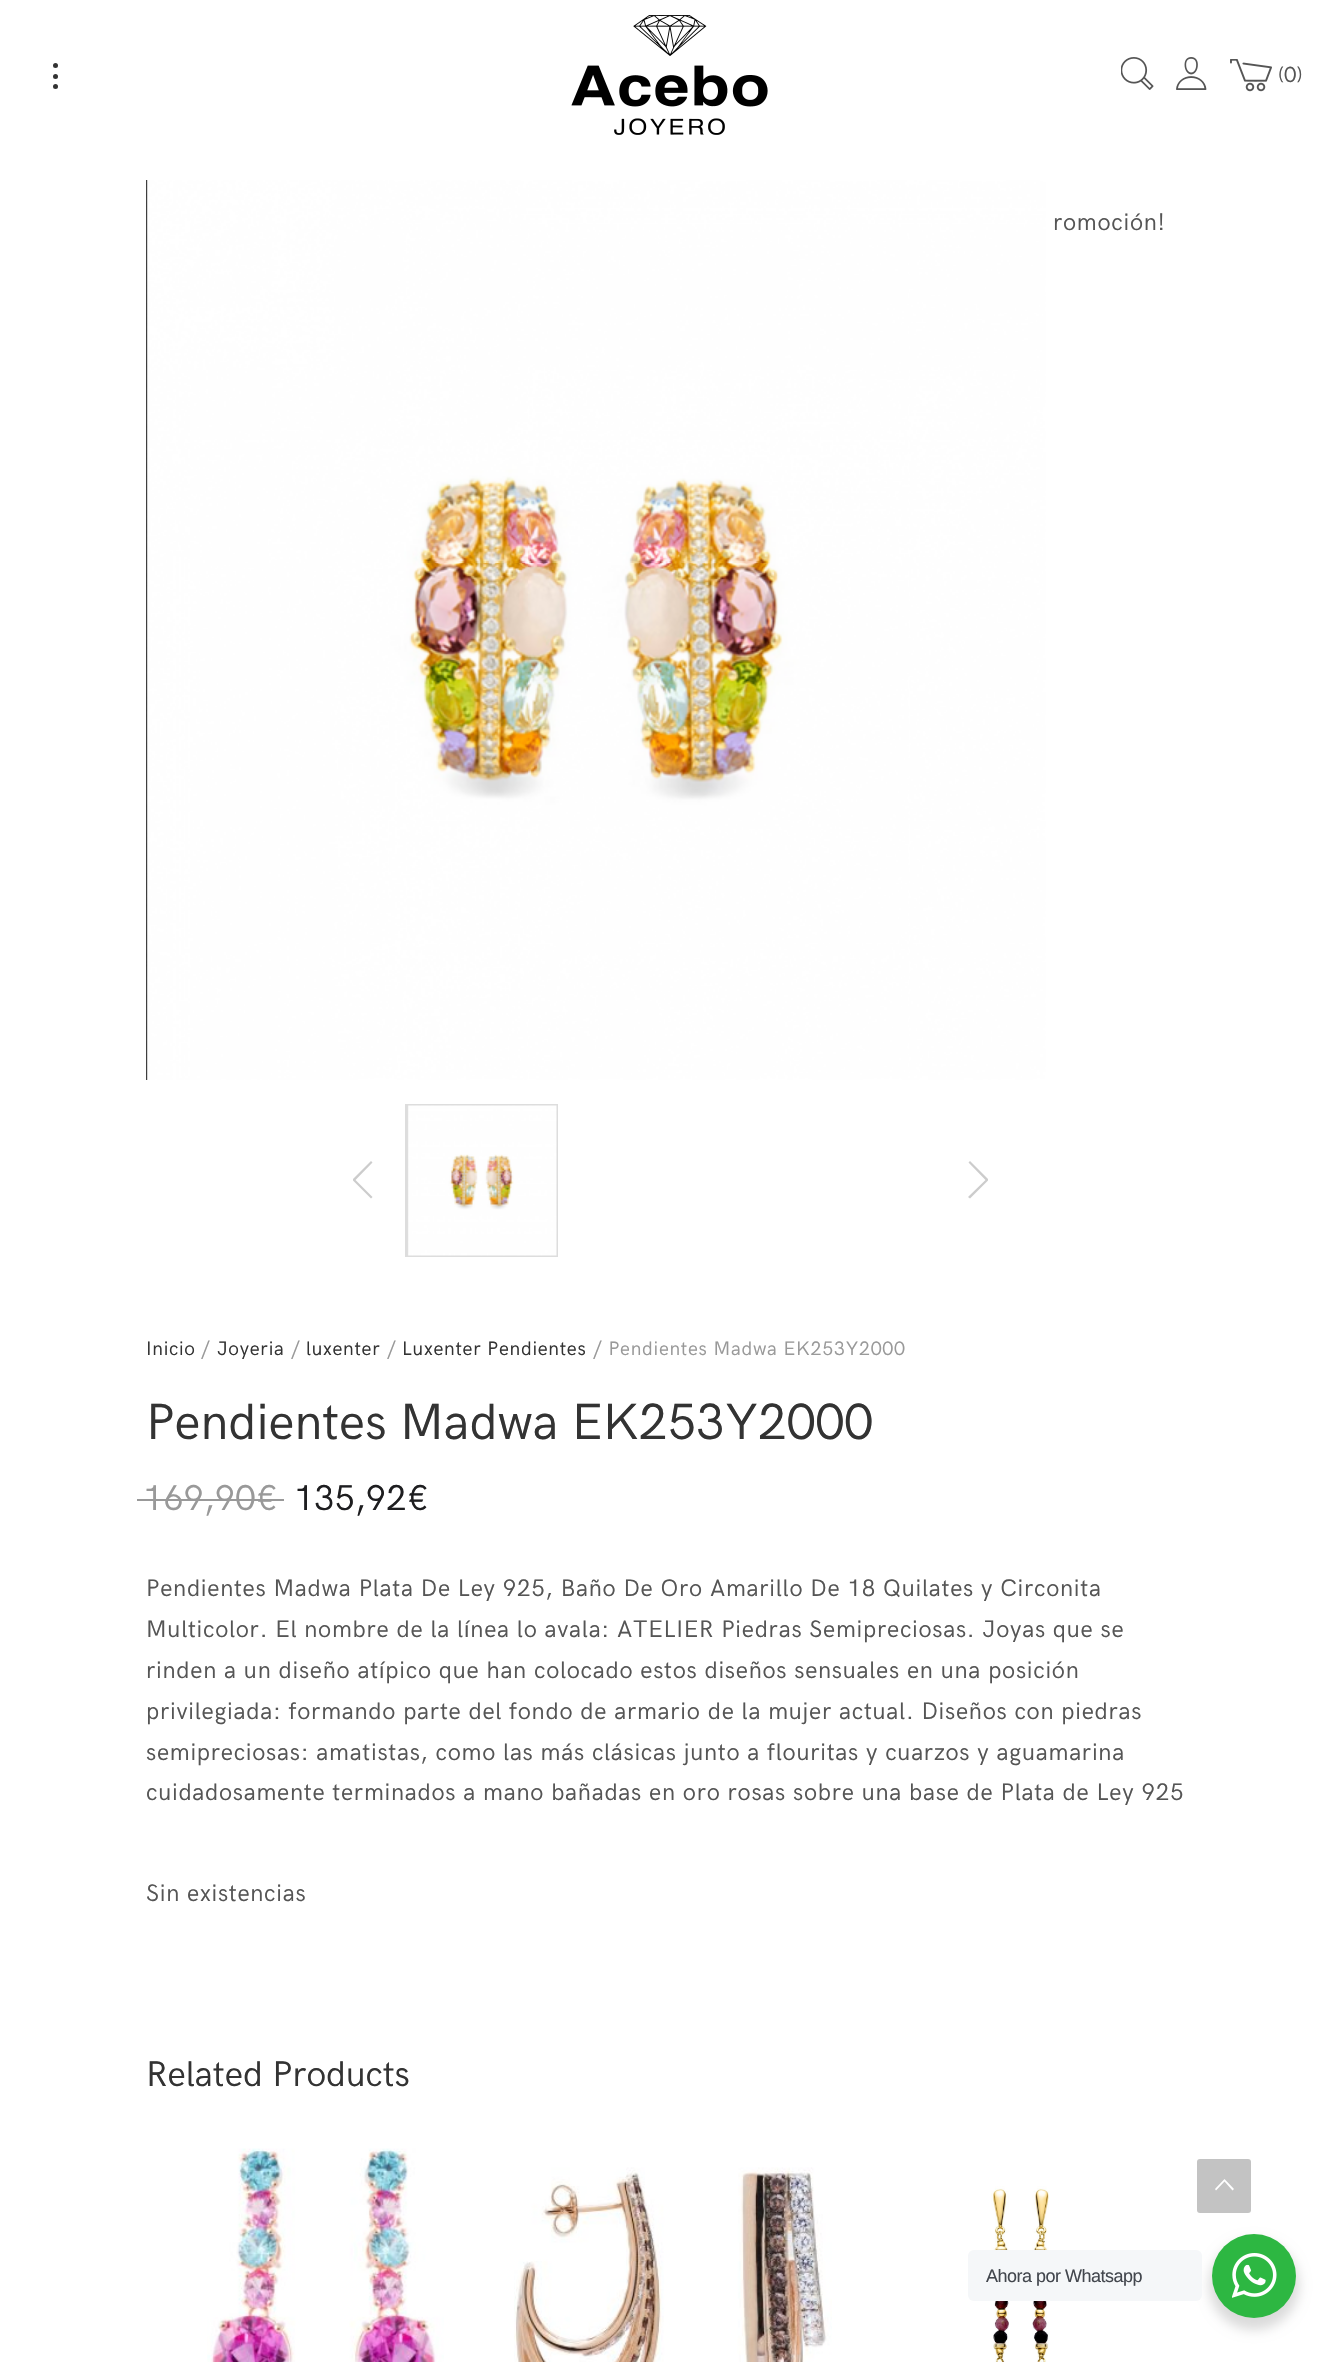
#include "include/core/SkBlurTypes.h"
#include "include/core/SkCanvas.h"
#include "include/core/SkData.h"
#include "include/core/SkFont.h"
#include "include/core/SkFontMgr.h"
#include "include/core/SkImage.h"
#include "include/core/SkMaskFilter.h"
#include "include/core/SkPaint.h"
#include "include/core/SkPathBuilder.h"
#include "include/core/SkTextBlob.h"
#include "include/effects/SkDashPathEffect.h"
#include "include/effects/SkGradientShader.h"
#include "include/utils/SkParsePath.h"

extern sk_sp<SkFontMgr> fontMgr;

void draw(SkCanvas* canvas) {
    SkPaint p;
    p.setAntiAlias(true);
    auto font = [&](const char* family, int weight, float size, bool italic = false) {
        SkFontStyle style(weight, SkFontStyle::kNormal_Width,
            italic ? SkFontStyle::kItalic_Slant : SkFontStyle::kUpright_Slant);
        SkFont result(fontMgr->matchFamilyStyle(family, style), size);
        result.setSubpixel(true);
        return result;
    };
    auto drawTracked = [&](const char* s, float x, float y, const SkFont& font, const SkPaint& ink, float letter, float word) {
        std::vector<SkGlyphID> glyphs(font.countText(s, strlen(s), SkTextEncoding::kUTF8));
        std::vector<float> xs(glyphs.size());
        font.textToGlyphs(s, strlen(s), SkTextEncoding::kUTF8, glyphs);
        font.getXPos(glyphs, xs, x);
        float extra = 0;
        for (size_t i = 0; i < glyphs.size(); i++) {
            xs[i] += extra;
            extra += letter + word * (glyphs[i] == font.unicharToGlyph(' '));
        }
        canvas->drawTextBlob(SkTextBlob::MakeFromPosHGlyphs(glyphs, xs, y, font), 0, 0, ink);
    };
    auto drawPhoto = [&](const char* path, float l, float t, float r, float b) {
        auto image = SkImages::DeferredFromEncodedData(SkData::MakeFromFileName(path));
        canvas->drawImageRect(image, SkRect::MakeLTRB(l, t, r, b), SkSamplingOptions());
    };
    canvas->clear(0xFFFFFFFF);
    p.setColor(0xFF333333);
    canvas->drawCircle(55.5f, 76.5f, 2.5f, p);
    canvas->drawCircle(55.5f, 65.5f, 2.5f, p);
    canvas->drawCircle(55.5f, 86.5f, 2.5f, p);
    drawPhoto("media/1.png", 571, 15, 768, 135);
    drawPhoto("media/2.png", 1121, 57, 1154, 90);
    drawPhoto("media/3.png", 1176, 57, 1207, 90);
    drawPhoto("media/4.png", 1230, 59, 1272, 92);
    auto font1 = font("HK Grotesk", 400, 22);
    p.setColor(0xFF555555);
    canvas->drawString("(0)", 1278, 82, font1, p);
    drawPhoto("media/5.png", 146, 180, 1046, 1080);
    p.setColor(0xFFCCCCCC);
    canvas->drawPath(SkPathBuilder().moveTo(371, 1161).lineTo(372.5f, 1162.5f).lineTo(355.5f, 1180).lineTo(372.5f, 1197).lineTo(371, 1198.5f).lineTo(353, 1180.5f).lineTo(353, 1179).close().detach(), p);
    p.setStyle(SkPaint::kStroke_Style);
    p.setStrokeWidth(2);
    p.setColor(0xFFDDDDDD);
    canvas->drawRect(SkRect::MakeLTRB(406, 1105, 557, 1256), p);
    drawPhoto("media/6.png", 407, 1105, 557, 1256);
    p.setStyle(SkPaint::kFill_Style);
    p.setColor(0xFFCCCCCC);
    canvas->drawPath(SkPathBuilder().moveTo(988, 1179).lineTo(988, 1180.5f).lineTo(970, 1198.5f).lineTo(968, 1197).lineTo(985.5f, 1180).lineTo(968.5f, 1162.5f).lineTo(970, 1161).close().detach(), p);
    auto font2 = font("HK Grotesk", 400, 24);
    p.setColor(0xFF555555);
    drawTracked("romoción!", 1053, 230, font2, p, 0.72f, 0);
    auto font3 = font("HK Grotesk", 400, 19.5f);
    p.setColor(0xFF333333);
    drawTracked("Inicio", 146, 1355, font3, p, 0.72f, 0);
    p.setColor(0xFF999999);
    drawTracked("/", 201, 1355, font3, p, 0.72f, 0);
    p.setColor(0xFF333333);
    drawTracked("Joyeria", 217, 1355, font3, p, 0.72f, 0);
    p.setColor(0xFF999999);
    drawTracked("/", 291, 1355, font3, p, 0.72f, 0);
    p.setColor(0xFF333333);
    drawTracked("luxenter", 306, 1355, font3, p, 0.72f, 0);
    p.setColor(0xFF999999);
    drawTracked("/", 387, 1355, font3, p, 0.72f, 0);
    p.setColor(0xFF333333);
    drawTracked("Luxenter Pendientes", 402, 1355, font3, p, 0.72f, 0);
    p.setColor(0xFF999999);
    drawTracked("/ Pendientes Madwa EK253Y2000", 593, 1355, font3, p, 0.72f, 0);
    auto font4 = font("HK Grotesk", 400, 51);
    p.setColor(0xFF333333);
    canvas->drawString("Pendientes Madwa EK253Y2000", 146, 1439, font4, p);
    auto font5 = font("HK Grotesk", 400, 36);
    p.setColor(0xFF999999);
    canvas->drawString("169,90€", 143, 1510, font5, p);
    canvas->drawRect(SkRect::MakeLTRB(137, 1499, 284, 1501), p);
    p.setColor(0xFF1E1E20);
    canvas->drawString("135,92€", 294, 1510, font5, p);
    p.setColor(0xFF555555);
    {
        const struct { const char* s; float x, y; } items[] = {
            {"Pendientes Madwa Plata De Ley 925, Baño De Oro Amarillo De 18 Quilates y Circonita", 146, 1596},
            {"Multicolor. El nombre de la línea lo avala: ATELIER Piedras Semipreciosas. Joyas que se", 146, 1637},
            {"rinden a un diseño atípico que han colocado estos diseños sensuales en una posición", 146, 1678},
            {"privilegiada: formando parte del fondo de armario de la mujer actual. Diseños con piedras", 146, 1719},
            {"semipreciosas: amatistas, como las más clásicas junto a flouritas y cuarzos y aguamarina", 146, 1760},
            {"cuidadosamente terminados a mano bañadas en oro rosas sobre una base de Plata de Ley 925", 146, 1800},
            {"Sin existencias", 146, 1901},
        };
        for (auto [s, x, y] : items) {
            drawTracked(s, x, y, font2, p, 0.72f, 0);
        }
    }
    p.setColor(0xFF333333);
    canvas->drawString("Related Products", 146, 2086, font5, p);
    drawPhoto("media/7.png", 207, 2148, 444, 2362);
    drawPhoto("media/8.png", 514, 2167, 832, 2362);
    drawPhoto("media/9.png", 991, 2186, 1049, 2362);
    p.setColor(0x24000000);
    p.setMaskFilter(SkMaskFilter::MakeBlur(kNormal_SkBlurStyle, 6));
    canvas->drawRoundRect(SkRect::MakeLTRB(1209, 2240, 1299, 2330), 45, 45, p);
    p.setMaskFilter(nullptr);
    p.setColor(0xFFF5F7F9);
    canvas->drawRoundRect(SkRect::MakeLTRB(968, 2250, 1202, 2301), 6, 6, p);
    auto font6 = font("Liberation Sans", 400, 18);
    p.setColor(0xFF43474E);
    drawTracked("Ahora por Whatsapp", 986, 2282, font6, p, -0.5f, 0);
    p.setColor(0xFF2DB742);
    canvas->drawCircle(1254, 2276, 42, p);
    drawPhoto("media/10.png", 1232, 2253, 1277, 2298);
    p.setColor(0xFFC3C3C3);
    canvas->drawRoundRect(SkRect::MakeLTRB(1197, 2159, 1251, 2213), 3, 3, p);
    p.setColor(0xFFFFFFFF);
    canvas->drawPath(SkPathBuilder().moveTo(1232.5f, 2190.5f).lineTo(1224.5f, 2181.5f).lineTo(1216, 2190.5f).lineTo(1215, 2189).lineTo(1224.5f, 2179).lineTo(1234, 2189).close().detach(), p);
}
